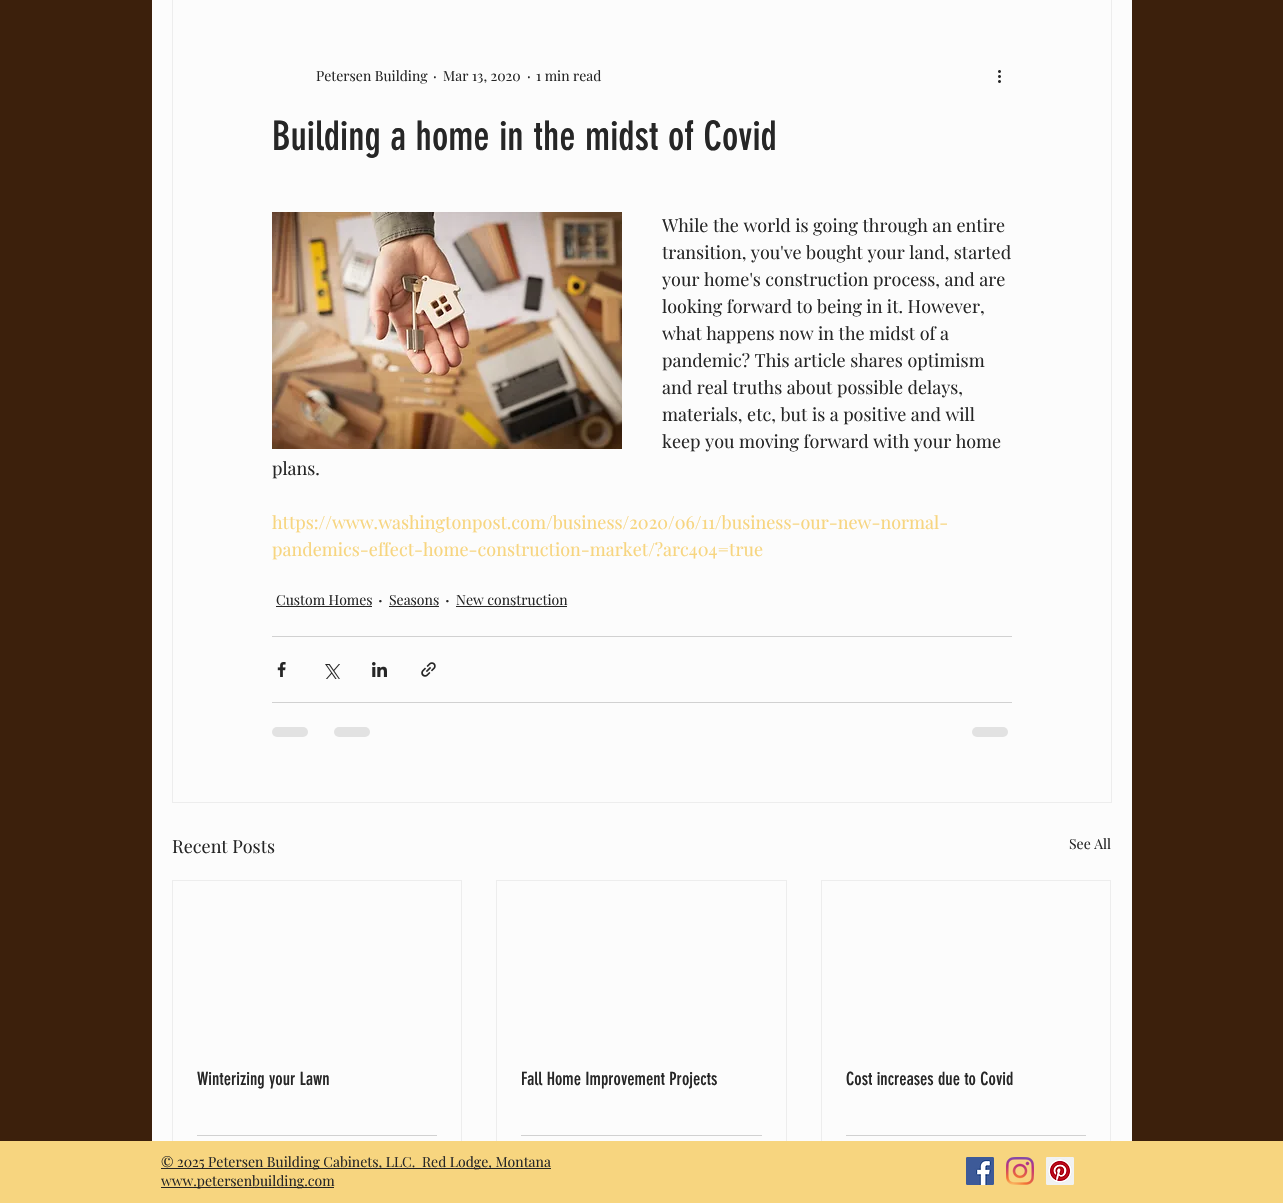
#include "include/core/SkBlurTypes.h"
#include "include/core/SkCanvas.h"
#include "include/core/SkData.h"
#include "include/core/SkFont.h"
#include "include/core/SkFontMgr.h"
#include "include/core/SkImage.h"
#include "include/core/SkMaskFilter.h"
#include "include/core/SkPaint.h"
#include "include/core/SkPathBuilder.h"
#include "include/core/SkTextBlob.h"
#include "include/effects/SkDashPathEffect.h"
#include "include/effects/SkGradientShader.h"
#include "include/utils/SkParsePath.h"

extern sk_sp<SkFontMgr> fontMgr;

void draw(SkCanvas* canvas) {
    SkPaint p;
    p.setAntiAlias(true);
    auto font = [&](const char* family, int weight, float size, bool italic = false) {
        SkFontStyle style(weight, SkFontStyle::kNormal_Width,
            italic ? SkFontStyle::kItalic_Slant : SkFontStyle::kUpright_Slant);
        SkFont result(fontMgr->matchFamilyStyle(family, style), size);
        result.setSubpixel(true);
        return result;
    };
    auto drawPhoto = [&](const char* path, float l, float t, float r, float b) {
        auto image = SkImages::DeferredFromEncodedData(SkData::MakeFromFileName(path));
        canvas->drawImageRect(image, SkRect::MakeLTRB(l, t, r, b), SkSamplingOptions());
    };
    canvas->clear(0xFF3C200C);
    p.setColor(0xFFFCFCFC);
    canvas->drawRect(SkRect::MakeLTRB(152, 0, 1132, 1141), p);
    p.setStyle(SkPaint::kStroke_Style);
    p.setStrokeWidth(1);
    p.setColor(0xFFEDEDED);
    canvas->drawRect(SkRect::MakeLTRB(172.5f, -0.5f, 1111.5f, 802.5f), p);
    auto font1 = font("Playfair Display", 400, 14);
    p.setStyle(SkPaint::kFill_Style);
    p.setColor(0xFF262626);
    {
        const struct { const char* s; float x, y; } items[] = {
            {"Petersen Building", 316, 81},
            {"·", 433, 81},
            {"Mar 13, 2020", 443, 81},
            {"·", 527, 81},
            {"1 min read", 536, 81},
        };
        for (auto [s, x, y] : items) {
            canvas->drawString(s, x, y, font1, p);
        }
    }
    drawPhoto("media/1.png", 998, 70, 1001, 83);
    auto font2 = font("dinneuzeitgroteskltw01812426", 400, 40);
    canvas->drawString("Building a home in the midst of Covid", 272, 150, font2, p);
    drawPhoto("media/2.png", 272, 212, 622, 449);
    auto font3 = font("Playfair Display", 400, 18);
    {
        const struct { const char* s; float x, y; } items[] = {
            {"While the world is going through an entire", 662, 232},
            {"transition, you've bought your land, started", 662, 259},
            {"your home's construction process, and are", 662, 286},
            {"looking forward to being in it. However,", 662, 313},
            {"what happens now in the midst of a", 662, 340},
            {"pandemic? This article shares optimism", 662, 367},
            {"and real truths about possible delays,", 662, 394},
            {"materials, etc, but is a positive and will", 662, 421},
            {"keep you moving forward with your home", 662, 448},
            {"plans.", 272, 475},
        };
        for (auto [s, x, y] : items) {
            canvas->drawString(s, x, y, font3, p);
        }
    }
    p.setColor(0xFFF7D57F);
    canvas->drawString("https://www.washingtonpost.com/business/2020/06/11/business-our-new-normal-", 272, 529, font3, p);
    canvas->drawString("pandemics-effect-home-construction-market/?arc404=true", 272, 556, font3, p);
    p.setColor(0xFF262626);
    canvas->drawString("Custom Homes", 276, 605, font1, p);
    canvas->drawRect(SkRect::MakeLTRB(276, 606, 372, 607), p);
    canvas->drawString("·", 378, 606, font3, p);
    canvas->drawString("Seasons", 389, 605, font1, p);
    canvas->drawRect(SkRect::MakeLTRB(389, 606, 439, 607), p);
    canvas->drawString("·", 445, 606, font3, p);
    canvas->drawString("New construction", 456, 605, font1, p);
    canvas->drawRect(SkRect::MakeLTRB(456, 606, 567, 607), p);
    p.setColor(0xFFD1D1D1);
    canvas->drawRect(SkRect::MakeLTRB(272, 636, 1012, 637), p);
    drawPhoto("media/3.png", 277, 662, 286, 677);
    drawPhoto("media/4.png", 325, 664, 340, 679);
    drawPhoto("media/5.png", 372, 662, 387, 677);
    drawPhoto("media/6.png", 421, 662, 436, 677);
    canvas->drawRect(SkRect::MakeLTRB(272, 702, 1012, 703), p);
    p.setColor(0xFFE2E2E2);
    canvas->drawRoundRect(SkRect::MakeLTRB(272, 727, 308, 737), 5, 5, p);
    canvas->drawRoundRect(SkRect::MakeLTRB(334, 727, 370, 737), 5, 5, p);
    canvas->drawRoundRect(SkRect::MakeLTRB(972, 727, 1008, 737), 5, 5, p);
    p.setColor(0xFF262626);
    canvas->drawString("Recent Posts", 172, 853, font3, p);
    canvas->drawString("See All", 1069, 849, font1, p);
    p.setStyle(SkPaint::kStroke_Style);
    p.setColor(0xFFEDEDED);
    canvas->drawRect(SkRect::MakeLTRB(172.5f, 880.5f, 461.5f, 1193.5f), p);
    auto font4 = font("dinneuzeitgroteskltw01812426", 400, 18);
    p.setStyle(SkPaint::kFill_Style);
    p.setColor(0xFF262626);
    canvas->drawString("Winterizing your Lawn", 197, 1085, font4, p);
    p.setColor(0xFFD1D1D1);
    canvas->drawRect(SkRect::MakeLTRB(197, 1135, 437, 1136), p);
    p.setStyle(SkPaint::kStroke_Style);
    p.setColor(0xFFEDEDED);
    canvas->drawRect(SkRect::MakeLTRB(496.5f, 880.5f, 786.5f, 1193.5f), p);
    p.setStyle(SkPaint::kFill_Style);
    p.setColor(0xFF262626);
    canvas->drawString("Fall Home Improvement Projects", 521, 1085, font4, p);
    p.setColor(0xFFD1D1D1);
    canvas->drawRect(SkRect::MakeLTRB(521, 1135, 762, 1136), p);
    p.setStyle(SkPaint::kStroke_Style);
    p.setColor(0xFFEDEDED);
    canvas->drawRect(SkRect::MakeLTRB(821.5f, 880.5f, 1110.5f, 1193.5f), p);
    p.setStyle(SkPaint::kFill_Style);
    p.setColor(0xFF262626);
    canvas->drawString("Cost increases due to Covid", 846, 1085, font4, p);
    {
        const struct { float l, t, r, b; SkColor color; } items[] = {
            {846, 1135, 1086, 1136, 0xFFD1D1D1},
            {0, 1141, 1283, 1203, 0xFFF7D57F},
            {161, 1168, 551, 1169, 0xFF262626},
        };
        for (auto [l, t, r, b, color] : items) {
            p.setColor(color);
            canvas->drawRect(SkRect::MakeLTRB(l, t, r, b), p);
        }
    }
    canvas->drawString("© 2025 Petersen Building Cabinets, LLC.", 161, 1167, font1, p);
    canvas->drawString("Red Lodge, Montana", 422, 1167, font1, p);
    canvas->drawRect(SkRect::MakeLTRB(161, 1187, 334, 1188), p);
    canvas->drawString("www.petersenbuilding.com", 161, 1186, font1, p);
    drawPhoto("media/7.png", 966, 1157, 994, 1185);
    drawPhoto("media/8.png", 1006, 1157, 1034, 1185);
    drawPhoto("media/9.png", 1046, 1157, 1074, 1185);
}
